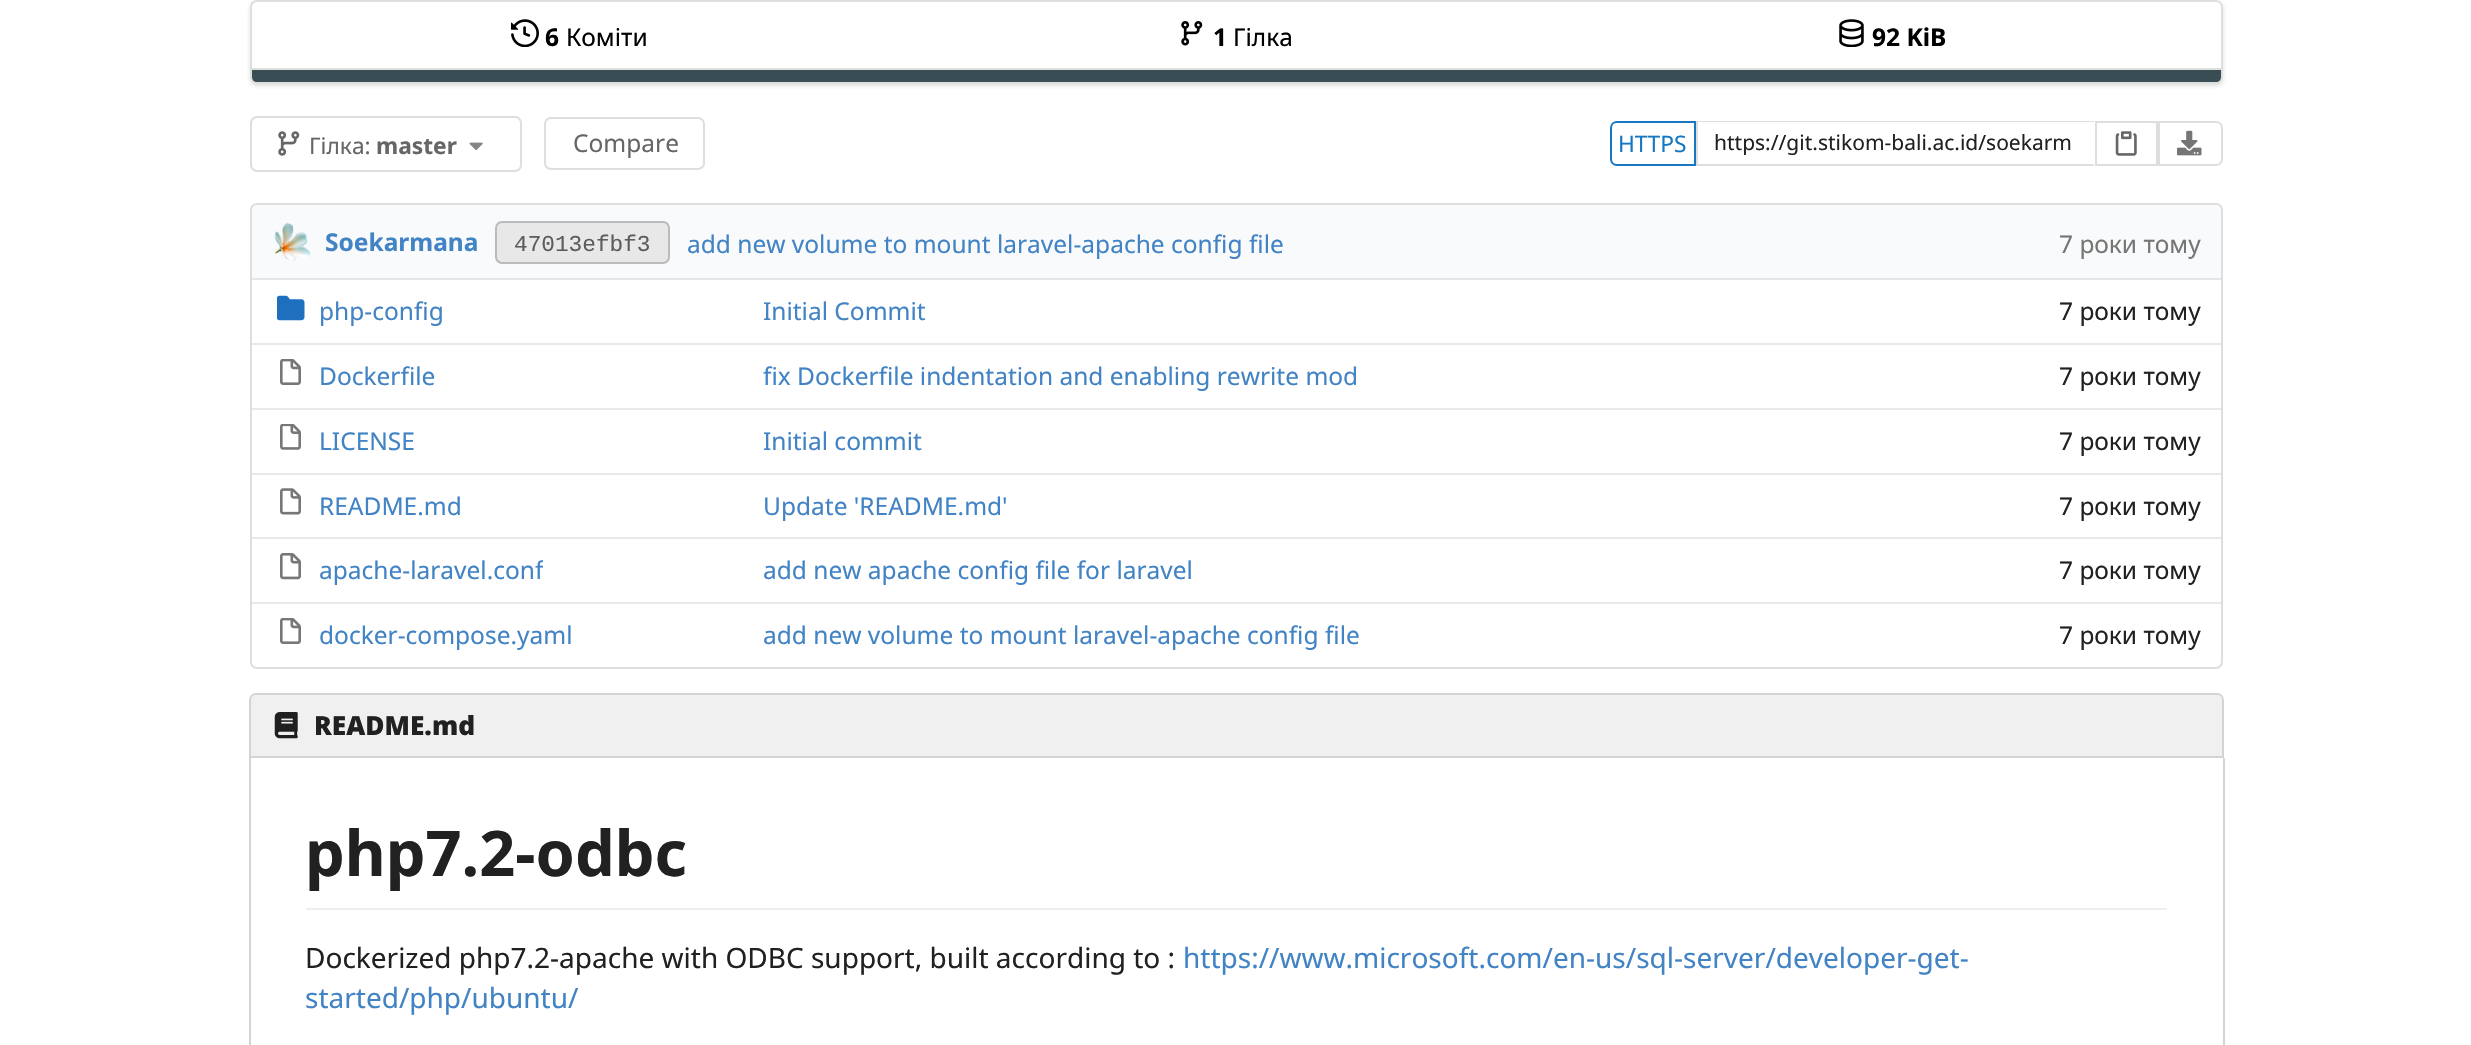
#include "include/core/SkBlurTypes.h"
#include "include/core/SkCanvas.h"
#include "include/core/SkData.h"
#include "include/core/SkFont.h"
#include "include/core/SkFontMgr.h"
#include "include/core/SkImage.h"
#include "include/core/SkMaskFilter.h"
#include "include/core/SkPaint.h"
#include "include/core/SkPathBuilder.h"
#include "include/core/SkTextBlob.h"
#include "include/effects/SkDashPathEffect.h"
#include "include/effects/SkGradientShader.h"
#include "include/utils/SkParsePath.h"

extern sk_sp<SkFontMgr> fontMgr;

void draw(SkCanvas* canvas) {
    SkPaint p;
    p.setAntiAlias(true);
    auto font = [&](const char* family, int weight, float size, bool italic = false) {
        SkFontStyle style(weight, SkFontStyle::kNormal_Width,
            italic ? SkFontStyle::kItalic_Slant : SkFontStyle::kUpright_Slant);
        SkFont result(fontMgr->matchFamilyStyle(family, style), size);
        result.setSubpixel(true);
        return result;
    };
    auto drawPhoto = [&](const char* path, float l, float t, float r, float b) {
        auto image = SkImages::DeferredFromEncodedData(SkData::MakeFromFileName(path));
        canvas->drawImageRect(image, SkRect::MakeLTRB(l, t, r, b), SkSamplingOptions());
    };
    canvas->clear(0xFFFFFFFF);
    canvas->save();
    canvas->clipPath(SkPathBuilder(SkPathFillType::kEvenOdd).moveTo(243, 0).lineTo(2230, 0).lineTo(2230, 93).lineTo(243, 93).close().moveTo(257, 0).lineTo(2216, 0).cubicTo(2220, 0, 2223, 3, 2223, 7).lineTo(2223, 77).cubicTo(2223, 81, 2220, 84, 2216, 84).lineTo(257, 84).cubicTo(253, 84, 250, 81, 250, 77).lineTo(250, 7).cubicTo(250, 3, 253, 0, 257, 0).close().detach(), true);
    p.setColor(0x26222426);
    p.setMaskFilter(SkMaskFilter::MakeBlur(kNormal_SkBlurStyle, 2));
    canvas->drawRoundRect(SkRect::MakeLTRB(250, 2, 2223, 86), 7, 7, p);
    p.setMaskFilter(nullptr);
    canvas->restore();
    p.setStyle(SkPaint::kStroke_Style);
    p.setStrokeWidth(2);
    canvas->drawRoundRect(SkRect::MakeLTRB(251, 1, 2222, 83), 6, 6, p);
    drawPhoto("media/1.png", 511, 19, 539, 47);
    auto font1 = font("Noto Sans", 700, 24.5f);
    p.setStyle(SkPaint::kFill_Style);
    p.setColor(0xFF000000);
    canvas->drawString("6", 545, 46, font1, p);
    auto font2 = font("Noto Sans", 400, 24.5f);
    canvas->drawString("Коміти", 566, 46, font2, p);
    drawPhoto("media/2.png", 1181, 21, 1203, 46);
    canvas->drawString("1", 1213, 46, font1, p);
    canvas->drawString("Гілка", 1233, 46, font2, p);
    drawPhoto("media/3.png", 1839, 19, 1864, 47);
    canvas->drawString("92 KiB", 1872, 46, font1, p);
    p.setColor(0xFFDEDEDE);
    canvas->drawRect(SkRect::MakeLTRB(252, 68, 2221, 70), p);
    p.setColor(0xFF384D54);
    canvas->drawPath(SkPathBuilder().moveTo(252, 70).lineTo(2221, 70).lineTo(2221, 77).cubicTo(2221, 80, 2219, 82, 2216, 82).lineTo(257, 82).cubicTo(254, 82, 252, 80, 252, 77).close().detach(), p);
    p.setStyle(SkPaint::kStroke_Style);
    p.setColor(0xFFDEDEDE);
    canvas->drawRoundRect(SkRect::MakeLTRB(251, 117, 521, 171), 6, 6, p);
    drawPhoto("media/4.png", 278, 131, 300, 156);
    auto font3 = font("Noto Sans", 400, 22.75f);
    p.setStyle(SkPaint::kFill_Style);
    p.setColor(0xFF666666);
    canvas->drawString("Гілка:", 309, 154, font3, p);
    auto font4 = font("Noto Sans", 700, 22.75f);
    canvas->drawString("master", 376, 154, font4, p);
    drawPhoto("media/5.png", 469, 142, 483, 150);
    p.setStyle(SkPaint::kStroke_Style);
    p.setColor(0xFFDEDEDE);
    canvas->drawRoundRect(SkRect::MakeLTRB(545, 118, 704, 169), 6, 6, p);
    p.setStyle(SkPaint::kFill_Style);
    p.setColor(0xFF666666);
    canvas->drawString("Compare", 573, 152, font2, p);
    p.setStyle(SkPaint::kStroke_Style);
    p.setColor(0xFF1678C2);
    canvas->drawPath(SkPathBuilder().moveTo(1617, 122).lineTo(1695, 122).lineTo(1695, 165).lineTo(1617, 165).cubicTo(1613.5f, 165, 1611, 162.5f, 1611, 159).lineTo(1611, 128).cubicTo(1611, 124.5f, 1613.5f, 122, 1617, 122).close().detach(), p);
    p.setStyle(SkPaint::kFill_Style);
    canvas->drawString("HTTPS", 1618, 152, font3, p);
    p.setColor(0xFFDEDEDE);
    canvas->drawPath(SkPathBuilder().moveTo(1696, 121).lineTo(2095, 121).lineTo(2093, 122).lineTo(1698, 122).close().detach(), p);
    canvas->drawPath(SkPathBuilder().moveTo(2095, 166).lineTo(1696, 166).lineTo(1698, 164).lineTo(2093, 164).close().detach(), p);
    p.setColor(0x26222426);
    canvas->drawPath(SkPathBuilder().moveTo(1696, 166).lineTo(1696, 121).lineTo(1698, 122).lineTo(1698, 164).close().detach(), p);
    auto font5 = font("Noto Sans", 400, 21);
    p.setColor(0xFF212121);
    canvas->drawString("https://git.stikom-bali.ac.id/soekarm", 1714, 150, font5, p);
    p.setStyle(SkPaint::kStroke_Style);
    p.setColor(0xFFDEDEDE);
    canvas->drawRect(SkRect::MakeLTRB(2096, 122, 2157, 165), p);
    drawPhoto("media/6.png", 2115, 131, 2137, 156);
    canvas->drawPath(SkPathBuilder().moveTo(2159, 122).lineTo(2216, 122).cubicTo(2219.5f, 122, 2222, 124.5f, 2222, 128).lineTo(2222, 159).cubicTo(2222, 162.5f, 2219.5f, 165, 2216, 165).lineTo(2159, 165).close().detach(), p);
    drawPhoto("media/7.png", 2177, 130, 2202, 156);
    canvas->drawRoundRect(SkRect::MakeLTRB(251, 204, 2222, 668), 6, 6, p);
    p.setStyle(SkPaint::kFill_Style);
    p.setColor(0xFFF9FAFB);
    canvas->drawPath(SkPathBuilder().moveTo(259, 205).lineTo(1852, 205).lineTo(1852, 280).lineTo(252, 280).lineTo(252, 212).cubicTo(252, 208, 255, 205, 259, 205).close().detach(), p);
    p.setColor(0xFFE3E5E6);
    canvas->drawRect(SkRect::MakeLTRB(252, 278, 1852, 280), p);
    drawPhoto("media/8.png", 274, 222, 311, 261);
    p.setColor(0xFF4183C4);
    canvas->drawString("Soekarmana", 325, 251, font1, p);
    p.setColor(0xFFE8E8E8);
    canvas->drawRoundRect(SkRect::MakeLTRB(496, 222, 669, 263), 6, 6, p);
    p.setStyle(SkPaint::kStroke_Style);
    p.setColor(0xFFBBBBBB);
    canvas->drawRoundRect(SkRect::MakeLTRB(496, 222, 669, 263), 6, 6, p);
    auto font6 = font("Liberation Mono", 400, 22.75f);
    p.setStyle(SkPaint::kFill_Style);
    p.setColor(0xFF5D5D5D);
    canvas->drawString("47013efbf3", 514, 251, font6, p);
    p.setColor(0xFF4183C4);
    canvas->drawString("add new volume to mount laravel-apache config file", 687, 253, font2, p);
    p.setColor(0xFFF9FAFB);
    canvas->drawPath(SkPathBuilder().moveTo(1852, 205).lineTo(2214, 205).cubicTo(2218, 205, 2221, 208, 2221, 212).lineTo(2221, 280).lineTo(1852, 280).close().detach(), p);
    p.setColor(0xFFE3E5E6);
    canvas->drawRect(SkRect::MakeLTRB(1852, 278, 2221, 280), p);
    p.setColor(0xFF767676);
    canvas->drawString("7 роки тому", 2059, 253, font2, p);
    drawPhoto("media/9.png", 277, 295, 305, 321);
    p.setColor(0xFF4183C4);
    canvas->drawString("php-config", 319, 320, font2, p);
    canvas->drawString("Initial Commit", 763, 320, font2, p);
    p.setColor(0xFF212121);
    canvas->drawString("7 роки тому", 2059, 320, font2, p);
    p.setColor(0xFFE9E9E9);
    canvas->drawRect(SkRect::MakeLTRB(252, 343, 2221, 345), p);
    drawPhoto("media/10.png", 280, 359, 301, 385);
    p.setColor(0xFF4183C4);
    canvas->drawString("Dockerfile", 319, 385, font2, p);
    canvas->drawString("fix Dockerfile indentation and enabling rewrite mod", 763, 385, font2, p);
    p.setColor(0xFF212121);
    canvas->drawString("7 роки тому", 2059, 385, font2, p);
    p.setColor(0xFFE9E9E9);
    canvas->drawRect(SkRect::MakeLTRB(252, 408, 2221, 410), p);
    drawPhoto("media/11.png", 280, 424, 301, 450);
    p.setColor(0xFF4183C4);
    canvas->drawString("LICENSE", 319, 450, font2, p);
    canvas->drawString("Initial commit", 763, 450, font2, p);
    p.setColor(0xFF212121);
    canvas->drawString("7 роки тому", 2059, 450, font2, p);
    p.setColor(0xFFE9E9E9);
    canvas->drawRect(SkRect::MakeLTRB(252, 473, 2221, 475), p);
    drawPhoto("media/12.png", 280, 488, 301, 515);
    p.setColor(0xFF4183C4);
    canvas->drawString("README.md", 319, 515, font2, p);
    canvas->drawString("Update 'README.md'", 763, 515, font2, p);
    p.setColor(0xFF212121);
    canvas->drawString("7 роки тому", 2059, 515, font2, p);
    p.setColor(0xFFE9E9E9);
    canvas->drawRect(SkRect::MakeLTRB(252, 537, 2221, 539), p);
    drawPhoto("media/13.png", 280, 553, 301, 580);
    canvas->save();
    canvas->clipRect(SkRect::MakeLTRB(271, 553, 543, 588));
    p.setColor(0xFF4183C4);
    canvas->drawString("apache-laravel.conf", 319, 579, font2, p);
    canvas->restore();
    canvas->drawString("add new apache config file for laravel", 763, 579, font2, p);
    p.setColor(0xFF212121);
    canvas->drawString("7 роки тому", 2059, 579, font2, p);
    p.setColor(0xFFE9E9E9);
    canvas->drawRect(SkRect::MakeLTRB(252, 602, 2221, 604), p);
    drawPhoto("media/10.png", 280, 618, 301, 644);
    p.setColor(0xFF4183C4);
    canvas->drawString("docker-compose.yaml", 319, 644, font2, p);
    canvas->drawString("add new volume to mount laravel-apache config file", 763, 644, font2, p);
    p.setColor(0xFF212121);
    canvas->drawString("7 роки тому", 2059, 644, font2, p);
    p.setColor(0xFFF0F0F0);
    canvas->drawPath(SkPathBuilder().moveTo(256, 694).lineTo(2217, 694).cubicTo(2220.5f, 694, 2223, 696.5f, 2223, 700).lineTo(2223, 757).lineTo(250, 757).lineTo(250, 700).cubicTo(250, 696.5f, 252.5f, 694, 256, 694).close().detach(), p);
    p.setStyle(SkPaint::kStroke_Style);
    p.setColor(0xFFD4D4D5);
    canvas->drawPath(SkPathBuilder().moveTo(256, 694).lineTo(2217, 694).cubicTo(2220.5f, 694, 2223, 696.5f, 2223, 700).lineTo(2223, 757).lineTo(250, 757).lineTo(250, 700).cubicTo(250, 696.5f, 252.5f, 694, 256, 694).close().detach(), p);
    drawPhoto("media/14.png", 274, 712, 298, 739);
    auto font7 = font("Noto Sans", 900, 26.25f);
    p.setStyle(SkPaint::kFill_Style);
    p.setColor(0xFF212121);
    canvas->drawString("README.md", 314, 735, font7, p);
    {
        const struct { float l, t, r, b; SkColor color; } items[] = {
            {2223, 758, 2225, 1045, 0xFFD4D4D5},
            {249, 758, 251, 1045, 0xFFD4D4D5},
            {306, 908, 2167, 910, 0xFFEEEEEE},
        };
        for (auto [l, t, r, b, color] : items) {
            p.setColor(color);
            canvas->drawRect(SkRect::MakeLTRB(l, t, r, b), p);
        }
    }
    auto font8 = font("Noto Sans", 700, 63);
    p.setColor(0xFF212121);
    canvas->drawString("php7.2-odbc", 305, 876, font8, p);
    auto font9 = font("Noto Sans", 400, 28);
    canvas->drawString("Dockerized php7.2-apache with ODBC support, built according to :", 305, 968, font9, p);
    p.setColor(0xFF4183C4);
    canvas->drawString("https://www.microsoft.com/en-us/sql-server/developer-get-", 1183, 968, font9, p);
    canvas->drawString("started/php/ubuntu/", 305, 1008, font9, p);
}
